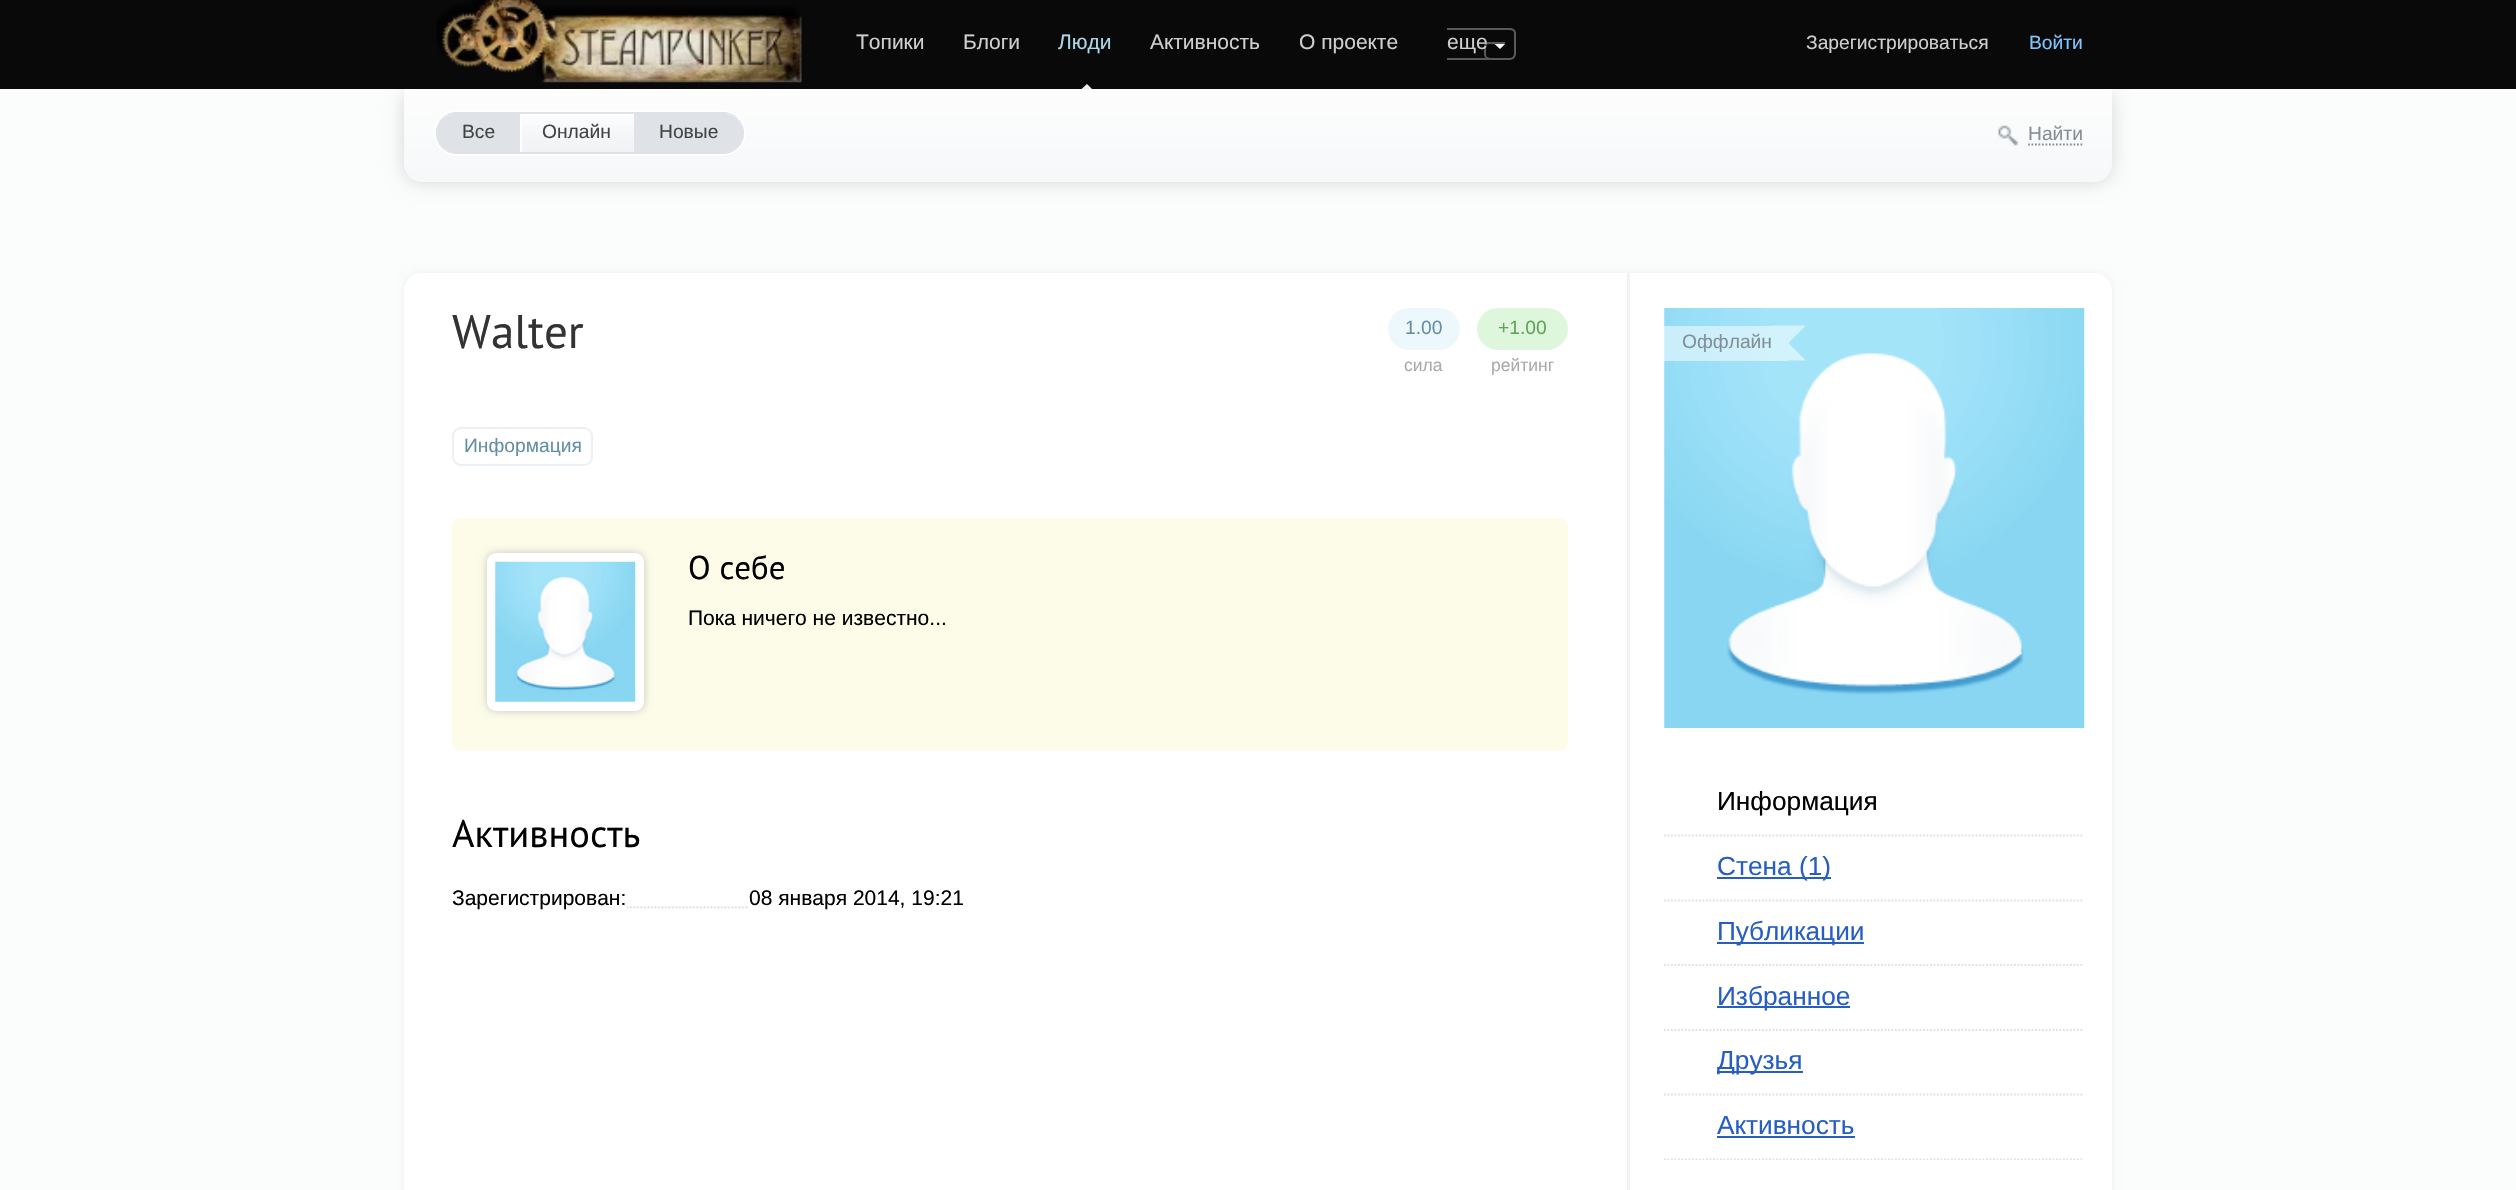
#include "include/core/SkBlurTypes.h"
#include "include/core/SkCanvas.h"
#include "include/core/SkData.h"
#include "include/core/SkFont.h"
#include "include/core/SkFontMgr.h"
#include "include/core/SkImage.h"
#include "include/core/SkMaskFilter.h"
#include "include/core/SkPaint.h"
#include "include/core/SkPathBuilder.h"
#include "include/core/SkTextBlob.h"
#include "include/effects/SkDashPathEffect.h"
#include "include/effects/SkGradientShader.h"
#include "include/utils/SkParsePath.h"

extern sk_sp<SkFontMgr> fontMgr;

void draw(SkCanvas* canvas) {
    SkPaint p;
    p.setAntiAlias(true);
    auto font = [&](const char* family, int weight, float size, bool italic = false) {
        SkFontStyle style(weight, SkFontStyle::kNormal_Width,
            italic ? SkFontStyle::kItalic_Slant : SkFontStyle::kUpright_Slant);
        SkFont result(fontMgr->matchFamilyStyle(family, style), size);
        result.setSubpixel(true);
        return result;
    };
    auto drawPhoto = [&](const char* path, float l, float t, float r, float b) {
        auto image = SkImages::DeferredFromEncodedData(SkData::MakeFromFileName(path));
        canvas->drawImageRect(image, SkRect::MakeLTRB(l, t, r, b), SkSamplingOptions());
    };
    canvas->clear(0xFFFBFCFC);
    p.setColor(0xFF090909);
    canvas->drawRect(SkRect::MakeLTRB(0, 0, 2516, 89), p);
    drawPhoto("media/1.png", 436, 0, 802, 83);
    auto font1 = font("Liberation Sans", 400, 21);
    p.setColor(0xFFCFCFCF);
    canvas->drawString("Топики", 856, 49, font1, p);
    canvas->drawString("Блоги", 963, 49, font1, p);
    p.setColor(0xFFAED6E9);
    canvas->drawString("Люди", 1058, 49, font1, p);
    p.setColor(0xFFFFFFFF);
    canvas->drawPath(SkPathBuilder().moveTo(1092, 89).lineTo(1081.5f, 89).lineTo(1087, 84).close().detach(), p);
    p.setColor(0xFFCFCFCF);
    canvas->drawString("Активность", 1150, 49, font1, p);
    canvas->drawString("О проекте", 1299, 49, font1, p);
    p.setColor(0xFF595959);
    canvas->drawPath(SkPathBuilder(SkPathFillType::kEvenOdd).moveTo(1489, 42).lineTo(1505, 42).lineTo(1505, 59.5f).lineTo(1489, 59.5f).cubicTo(1486.5f, 59.5f, 1484, 57, 1484, 54).lineTo(1484, 47).cubicTo(1484, 44.5f, 1486.5f, 42, 1489, 42).close().moveTo(1489, 44).lineTo(1505, 44).lineTo(1505, 58).lineTo(1492, 58).cubicTo(1485, 58, 1486, 55.5f, 1486, 49.5f).cubicTo(1486, 47, 1486, 44, 1489, 44).close().detach(), p);
    canvas->drawPath(SkPathBuilder(SkPathFillType::kEvenOdd).moveTo(1447, 28).lineTo(1510, 28).cubicTo(1513, 28, 1516, 30, 1516, 33).lineTo(1516, 54).cubicTo(1516, 57, 1513, 60, 1510, 60).lineTo(1447, 60).close().moveTo(1447, 30).lineTo(1510, 30).cubicTo(1512, 30, 1514, 31, 1514, 33).lineTo(1514, 54).cubicTo(1514, 56, 1512, 58, 1510, 58).lineTo(1447, 58).close().detach(), p);
    p.setColor(0xFFCFCFCF);
    canvas->drawString("еще", 1447, 49, font1, p);
    p.setColor(0xFFFFFFFF);
    canvas->drawPath(SkPathBuilder().moveTo(1494.5f, 44).lineTo(1505, 44).lineTo(1500, 49).close().detach(), p);
    auto font2 = font("Liberation Sans", 400, 19.25f);
    p.setColor(0xFFCFCFCF);
    canvas->drawString("Зарегистрироваться", 1806, 49, font2, p);
    p.setColor(0xFF7DC6FF);
    canvas->drawString("Войти", 2029, 49, font2, p);
    p.setColor(0x26000000);
    p.setMaskFilter(SkMaskFilter::MakeBlur(kNormal_SkBlurStyle, 9));
    canvas->drawRoundRect(SkRect::MakeLTRB(404, 89, 2112, 182), 18, 18, p);
    p.setMaskFilter(nullptr);
    {
        const SkColor colors[] = {0xFFFDFDFD, 0xFFF6F8F9};
        const float stops[] = {0, 1};
        const SkPoint ends[] = {{1258, 89}, {1258, 182}};
        p.setShader(SkGradientShader::MakeLinear(ends, colors, stops, 2, SkTileMode::kClamp));
        p.setAlpha(255);
    }
    canvas->drawPath(SkPathBuilder().moveTo(404, 89).lineTo(2112, 89).lineTo(2112, 164).cubicTo(2112, 174, 2104, 182, 2094, 182).lineTo(422, 182).cubicTo(412, 182, 404, 174, 404, 164).close().detach(), p);
    p.setStyle(SkPaint::kStroke_Style);
    p.setStrokeWidth(2);
    p.setShader(nullptr);
    p.setColor(0xFFFFFFFF);
    canvas->drawRoundRect(SkRect::MakeLTRB(435, 111, 745, 155), 22, 22, p);
    p.setStyle(SkPaint::kFill_Style);
    p.setColor(0xFFDFE3E8);
    canvas->drawPath(SkPathBuilder().moveTo(436, 132).lineTo(436, 133).cubicTo(436, 145, 445, 154, 457, 154).lineTo(520, 154).lineTo(520, 152).lineTo(457, 152).cubicTo(445, 152, 437, 144, 436, 132).close().detach(), p);
    canvas->drawPath(SkPathBuilder().moveTo(457, 114).lineTo(520, 114).lineTo(520, 112).lineTo(457, 112).cubicTo(445, 112, 436, 121, 436, 133).lineTo(436, 134).cubicTo(437, 122, 445, 114, 457, 114).close().detach(), p);
    canvas->drawRect(SkRect::MakeLTRB(518, 112, 520, 154), p);
    canvas->save();
    canvas->clipPath(SkPathBuilder().moveTo(457, 112).lineTo(723, 112).cubicTo(734.5f, 112, 744, 121.5f, 744, 133).cubicTo(744, 144.5f, 734.5f, 154, 723, 154).lineTo(457, 154).cubicTo(445.5f, 154, 436, 144.5f, 436, 133).cubicTo(436, 121.5f, 445.5f, 112, 457, 112).close().detach(), true);
    {
        const SkColor colors[] = {0xFFFBFBFC, 0xFFF0F2F5};
        const float stops[] = {0, 1};
        const SkPoint ends[] = {{477, 114}, {477, 152}};
        p.setShader(SkGradientShader::MakeLinear(ends, colors, stops, 2, SkTileMode::kClamp));
        p.setAlpha(255);
    }
    canvas->drawPath(SkPathBuilder().moveTo(455, 114).lineTo(518, 114).lineTo(518, 152).lineTo(455, 152).cubicTo(444.5f, 152, 436, 143.5f, 436, 133).cubicTo(436, 122.5f, 444.5f, 114, 455, 114).close().detach(), p);
    canvas->restore();
    p.setShader(nullptr);
    p.setColor(0xFFDFE3E8);
    canvas->drawPath(SkPathBuilder().moveTo(455, 114).cubicTo(445, 114, 436, 123, 436, 133).cubicTo(436, 143, 445, 152, 455, 152).lineTo(518, 152).lineTo(518, 114).close().detach(), p);
    p.setColor(0xFF434343);
    canvas->drawString("Все", 462, 138, font2, p);
    {
        const struct { float l, t, r, b; SkColor color; } items[] = {
            {520, 152, 635, 154, 0xFFDFE3E8},
            {520, 112, 635, 114, 0xFFDFE3E8},
            {634, 112, 635, 154, 0xFFDFE3E8},
        };
        for (auto [l, t, r, b, color] : items) {
            p.setColor(color);
            canvas->drawRect(SkRect::MakeLTRB(l, t, r, b), p);
        }
    }
    {
        const SkColor colors[] = {0xFFFBFBFC, 0xFFF0F2F5};
        const float stops[] = {0, 1};
        const SkPoint ends[] = {{577, 114}, {577, 152}};
        p.setShader(SkGradientShader::MakeLinear(ends, colors, stops, 2, SkTileMode::kClamp));
        p.setAlpha(255);
    }
    canvas->drawRect(SkRect::MakeLTRB(522, 125, 634, 152), p);
    p.setShader(nullptr);
    p.setColor(0xFFFFFFFF);
    canvas->drawRect(SkRect::MakeLTRB(520, 114, 634, 116), p);
    canvas->drawRect(SkRect::MakeLTRB(520, 114, 522, 152), p);
    p.setColor(0xFF434343);
    canvas->drawString("Онлайн", 542, 138, font2, p);
    p.setColor(0xFFDFE3E8);
    canvas->drawPath(SkPathBuilder().moveTo(635, 154).lineTo(723, 154).cubicTo(735, 154, 744, 145, 744, 133).lineTo(744, 132).cubicTo(743, 143, 734, 152, 723, 152).lineTo(635, 152).close().detach(), p);
    canvas->drawPath(SkPathBuilder().moveTo(635, 112).lineTo(635, 114).lineTo(723, 114).cubicTo(734, 114, 743, 123, 744, 134).cubicTo(745, 122, 735, 112, 723, 112).close().detach(), p);
    canvas->save();
    canvas->clipPath(SkPathBuilder().moveTo(457, 112).lineTo(723, 112).cubicTo(734.5f, 112, 744, 121.5f, 744, 133).cubicTo(744, 144.5f, 734.5f, 154, 723, 154).lineTo(457, 154).cubicTo(445.5f, 154, 436, 144.5f, 436, 133).cubicTo(436, 121.5f, 445.5f, 112, 457, 112).close().detach(), true);
    {
        const SkColor colors[] = {0xFFFBFBFC, 0xFFF0F2F5};
        const float stops[] = {0, 1};
        const SkPoint ends[] = {{690, 114}, {690, 152}};
        p.setShader(SkGradientShader::MakeLinear(ends, colors, stops, 2, SkTileMode::kClamp));
        p.setAlpha(255);
    }
    canvas->drawPath(SkPathBuilder().moveTo(635, 114).lineTo(725, 114).cubicTo(735.5f, 114, 744, 122.5f, 744, 133).cubicTo(744, 143.5f, 735.5f, 152, 725, 152).lineTo(635, 152).close().detach(), p);
    canvas->restore();
    p.setShader(nullptr);
    p.setColor(0xFFFFFFFF);
    canvas->drawPath(SkPathBuilder().moveTo(635, 114).lineTo(635, 116).lineTo(724, 116).cubicTo(735, 116, 743, 124, 744, 134).cubicTo(745, 123, 736, 114, 725, 114).close().detach(), p);
    p.setColor(0xFFDFE3E8);
    canvas->drawPath(SkPathBuilder().moveTo(635, 114).lineTo(635, 152).lineTo(725, 152).cubicTo(735, 152, 744, 143, 744, 133).cubicTo(744, 123, 735, 114, 725, 114).close().detach(), p);
    p.setColor(0xFF434343);
    canvas->drawString("Новые", 659, 138, font2, p);
    drawPhoto("media/2.png", 1998, 125, 2019, 146);
    p.setColor(0xFF878E96);
    canvas->drawString("Найти", 2028, 140, font2, p);
    p.setStyle(SkPaint::kStroke_Style);
    p.setStrokeWidth(1.8f);
    p.setPathEffect(SkDashPathEffect::Make({{1.75f, 1.75f}}, 0));
    canvas->drawPath(SkPathBuilder().moveTo(2028, 144.5f).lineTo(2082.5f, 144.5f).detach(), p);
    p.setPathEffect(nullptr);
    p.setStyle(SkPaint::kFill_Style);
    p.setColor(0x0D000000);
    p.setMaskFilter(SkMaskFilter::MakeBlur(kNormal_SkBlurStyle, 4.5f));
    canvas->drawRoundRect(SkRect::MakeLTRB(404, 273, 2112, 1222), 18, 18, p);
    p.setMaskFilter(nullptr);
    p.setColor(0xFFFFFFFF);
    canvas->drawRoundRect(SkRect::MakeLTRB(404, 273, 2112, 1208), 18, 18, p);
    p.setColor(0xFFF1F3F5);
    canvas->drawRect(SkRect::MakeLTRB(1627, 273, 1630, 1190), p);
    auto font3 = font("PT Sans", 400, 47);
    p.setColor(0xFF333333);
    canvas->drawString("Walter", 452, 348, font3, p);
    p.setColor(0xFFEDF8FD);
    canvas->drawRoundRect(SkRect::MakeLTRB(1388, 308, 1460, 350), 21, 21, p);
    p.setColor(0xFF628FA5);
    canvas->drawString("1.00", 1405, 334, font2, p);
    auto font4 = font("Liberation Sans", 400, 17.5f);
    p.setColor(0xFFAAAAAA);
    canvas->drawString("сила", 1404, 371, font4, p);
    p.setColor(0xFFDEF7DC);
    canvas->drawRoundRect(SkRect::MakeLTRB(1477, 308, 1568, 350), 21, 21, p);
    p.setColor(0xFF5FA459);
    canvas->drawString("+1.00", 1498, 334, font2, p);
    p.setColor(0xFFAAAAAA);
    canvas->drawString("рейтинг", 1491, 371, font4, p);
    p.setStyle(SkPaint::kStroke_Style);
    p.setStrokeWidth(2);
    p.setColor(0xFFEBF0F4);
    canvas->drawRoundRect(SkRect::MakeLTRB(453, 428, 592, 465), 8, 8, p);
    p.setStyle(SkPaint::kFill_Style);
    p.setColor(0xFF628FA5);
    canvas->drawString("Информация", 464, 452, font2, p);
    p.setColor(0xFFFCFCE9);
    canvas->drawRoundRect(SkRect::MakeLTRB(452, 518, 1568, 751), 9, 9, p);
    p.setColor(0x33000000);
    p.setMaskFilter(SkMaskFilter::MakeBlur(kNormal_SkBlurStyle, 4.5f));
    canvas->drawRoundRect(SkRect::MakeLTRB(487, 553, 644, 711), 9, 9, p);
    p.setMaskFilter(nullptr);
    p.setColor(0xFFFFFFFF);
    canvas->drawRoundRect(SkRect::MakeLTRB(487, 553, 644, 711), 9, 9, p);
    drawPhoto("media/3.png", 495, 561, 636, 702);
    auto font5 = font("PT Sans", 400, 33);
    p.setColor(0xFF000000);
    canvas->drawString("О себе", 688, 579, font5, p);
    canvas->drawString("Пока ничего не известно...", 688, 625, font1, p);
    auto font6 = font("PT Sans", 400, 38.5f);
    canvas->drawString("Активность", 452, 847, font6, p);
    drawPhoto("media/4.png", 451, 906, 749, 909);
    p.setColor(0xFFFFFFFF);
    canvas->drawRect(SkRect::MakeLTRB(452, 906, 627, 909), p);
    p.setColor(0xFF000000);
    canvas->drawString("Зарегистрирован:", 452, 905, font1, p);
    canvas->drawString("08 января 2014, 19:21", 749, 905, font1, p);
    drawPhoto("media/5.png", 1664, 308, 2085, 728);
    p.setColor(0x80FFFFFF);
    canvas->drawRect(SkRect::MakeLTRB(1664, 326, 1771, 361), p);
    p.setColor(0xFF819197);
    canvas->drawString("Оффлайн", 1682, 348, font2, p);
    p.setColor(0xFFD2F2FC);
    canvas->drawPath(SkPathBuilder().moveTo(1771, 325.5f).lineTo(1806, 325.5f).lineTo(1788.5f, 343).close().moveTo(1806, 360.5f).lineTo(1771, 360.5f).lineTo(1788.5f, 343).close().detach(), p);
    canvas->drawRect(SkRect::MakeLTRB(1771, 326, 1789, 361), p);
    p.setStyle(SkPaint::kStroke_Style);
    p.setStrokeWidth(1.8f);
    p.setColor(0xFFDCE1E6);
    p.setPathEffect(SkDashPathEffect::Make({{1.75f, 1.75f}}, 0));
    canvas->drawPath(SkPathBuilder().moveTo(1664, 835.5f).lineTo(2084, 835.5f).detach(), p);
    p.setPathEffect(nullptr);
    auto font7 = font("Liberation Sans", 400, 26.25f);
    p.setStyle(SkPaint::kFill_Style);
    p.setColor(0xFF000000);
    canvas->drawString("Информация", 1717, 810, font7, p);
    p.setStyle(SkPaint::kStroke_Style);
    p.setColor(0xFFDCE1E6);
    p.setPathEffect(SkDashPathEffect::Make({{1.75f, 1.75f}}, 0));
    canvas->drawPath(SkPathBuilder().moveTo(1664, 900.5f).lineTo(2084, 900.5f).detach(), p);
    p.setPathEffect(nullptr);
    p.setStyle(SkPaint::kFill_Style);
    p.setColor(0xFF275EC2);
    canvas->drawRect(SkRect::MakeLTRB(1717, 877, 1831, 879), p);
    canvas->drawString("Стена (1)", 1717, 875, font7, p);
    p.setStyle(SkPaint::kStroke_Style);
    p.setColor(0xFFDCE1E6);
    p.setPathEffect(SkDashPathEffect::Make({{1.75f, 1.75f}}, 0));
    canvas->drawPath(SkPathBuilder().moveTo(1664, 965).lineTo(2084, 965).detach(), p);
    p.setPathEffect(nullptr);
    p.setStyle(SkPaint::kFill_Style);
    p.setColor(0xFF275EC2);
    canvas->drawRect(SkRect::MakeLTRB(1717, 942, 1864, 944), p);
    canvas->drawString("Публикации", 1717, 940, font7, p);
    p.setStyle(SkPaint::kStroke_Style);
    p.setColor(0xFFDCE1E6);
    p.setPathEffect(SkDashPathEffect::Make({{1.75f, 1.75f}}, 0));
    canvas->drawPath(SkPathBuilder().moveTo(1664, 1030).lineTo(2084, 1030).detach(), p);
    p.setPathEffect(nullptr);
    p.setStyle(SkPaint::kFill_Style);
    p.setColor(0xFF275EC2);
    canvas->drawRect(SkRect::MakeLTRB(1717, 1006, 1850, 1008), p);
    canvas->drawString("Избранное", 1717, 1005, font7, p);
    p.setStyle(SkPaint::kStroke_Style);
    p.setColor(0xFFDCE1E6);
    p.setPathEffect(SkDashPathEffect::Make({{1.75f, 1.75f}}, 0));
    canvas->drawPath(SkPathBuilder().moveTo(1664, 1094.5f).lineTo(2084, 1094.5f).detach(), p);
    p.setPathEffect(nullptr);
    p.setStyle(SkPaint::kFill_Style);
    p.setColor(0xFF275EC2);
    canvas->drawRect(SkRect::MakeLTRB(1717, 1071, 1803, 1073), p);
    canvas->drawString("Друзья", 1717, 1069, font7, p);
    canvas->save();
    canvas->clipRect(SkRect::MakeLTRB(1664, 772, 2084, 1160));
    p.setStyle(SkPaint::kStroke_Style);
    p.setColor(0xFFDCE1E6);
    p.setPathEffect(SkDashPathEffect::Make({{1.75f, 1.75f}}, 0));
    canvas->drawPath(SkPathBuilder().moveTo(1664, 1159.5f).lineTo(2084, 1159.5f).detach(), p);
    p.setPathEffect(nullptr);
    canvas->restore();
    p.setStyle(SkPaint::kFill_Style);
    p.setColor(0xFF275EC2);
    canvas->drawString("Активность", 1717, 1134, font7, p);
    canvas->drawRect(SkRect::MakeLTRB(1717, 1136, 1855, 1138), p);
}
